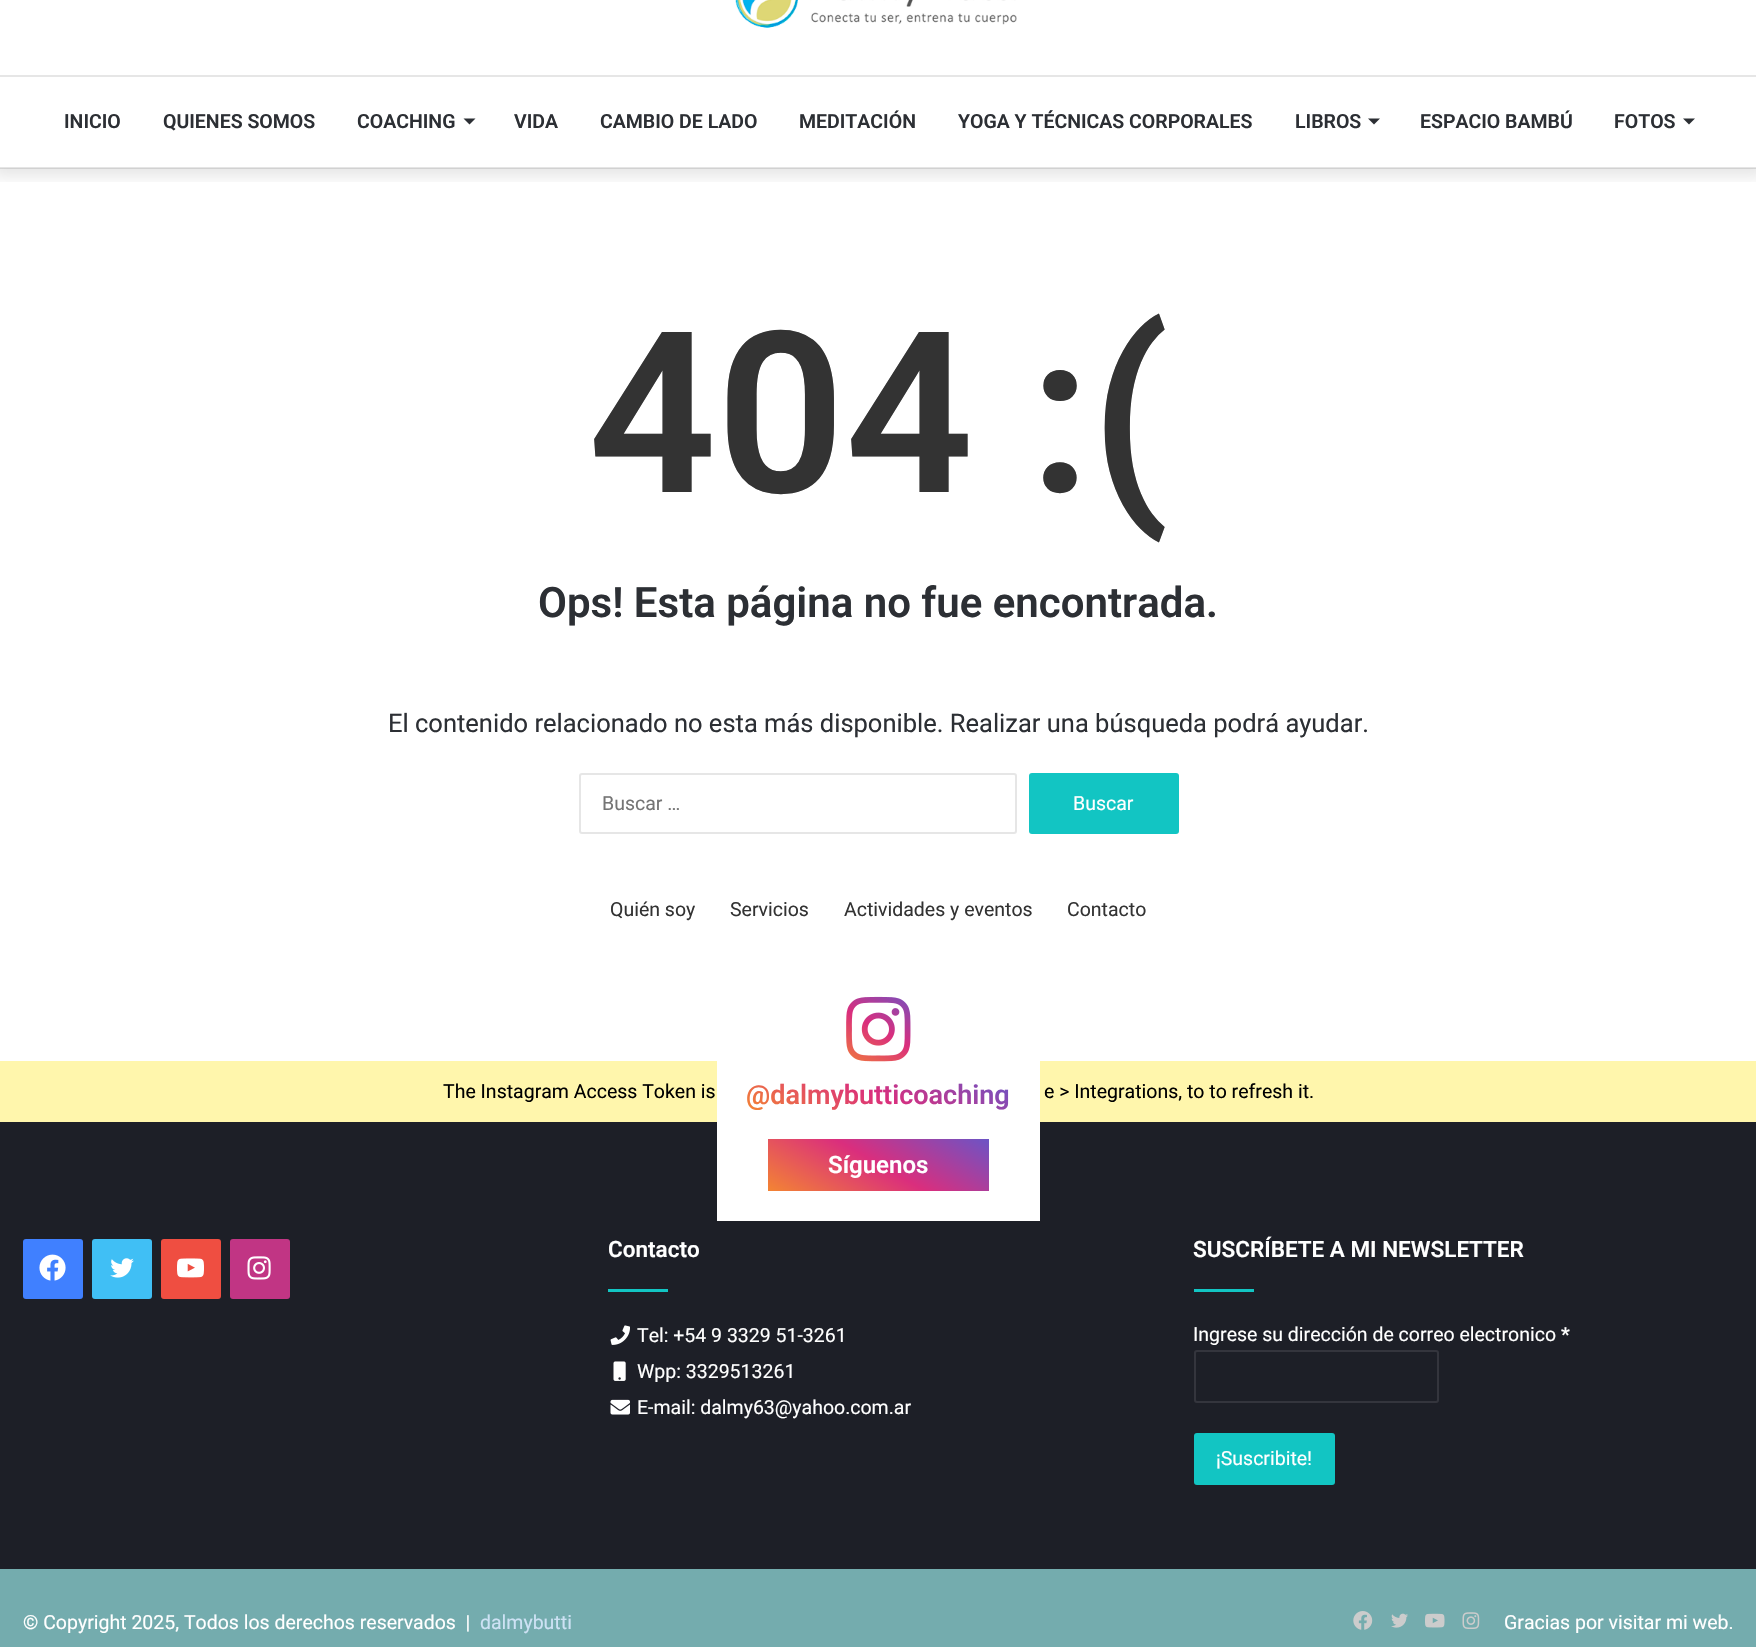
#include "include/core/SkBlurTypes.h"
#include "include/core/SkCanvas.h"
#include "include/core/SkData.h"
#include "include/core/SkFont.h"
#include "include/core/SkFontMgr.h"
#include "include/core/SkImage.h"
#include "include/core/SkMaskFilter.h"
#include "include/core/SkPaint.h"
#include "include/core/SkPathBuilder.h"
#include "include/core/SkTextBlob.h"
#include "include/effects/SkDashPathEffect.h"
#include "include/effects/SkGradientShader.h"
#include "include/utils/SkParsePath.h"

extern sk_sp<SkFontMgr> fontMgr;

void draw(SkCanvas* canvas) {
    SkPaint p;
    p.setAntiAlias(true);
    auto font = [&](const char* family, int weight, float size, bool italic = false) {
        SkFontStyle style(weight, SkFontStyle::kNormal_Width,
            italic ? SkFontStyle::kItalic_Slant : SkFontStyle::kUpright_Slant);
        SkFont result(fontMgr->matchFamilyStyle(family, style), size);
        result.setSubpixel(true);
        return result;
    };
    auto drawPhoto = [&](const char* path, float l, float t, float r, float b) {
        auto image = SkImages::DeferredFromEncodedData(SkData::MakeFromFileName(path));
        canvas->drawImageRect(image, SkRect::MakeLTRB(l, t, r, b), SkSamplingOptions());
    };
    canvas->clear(0xFFFFFFFF);
    canvas->save();
    canvas->clipRect(SkRect::MakeLTRB(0, 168, 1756, 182));
    p.setColor(0x1A000000);
    p.setMaskFilter(SkMaskFilter::MakeBlur(kNormal_SkBlurStyle, 7.5f));
    canvas->drawRect(SkRect::MakeLTRB(-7, -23, 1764, 176), p);
    p.setMaskFilter(nullptr);
    canvas->restore();
    drawPhoto("media/1.png", 735, 0, 1017, 28);
    p.setColor(0xFFE6E6E6);
    canvas->drawRect(SkRect::MakeLTRB(0, 75, 1756, 77), p);
    p.setColor(0x1A000000);
    canvas->drawRect(SkRect::MakeLTRB(0, 167, 1756, 169), p);
    auto font1 = font("Roboto", 600, 19.5f);
    p.setColor(0xFF2C2F34);
    {
        const struct { const char* s; float x, y; } items[] = {
            {"INICIO", 64, 128},
            {"QUIENES SOMOS", 163, 128},
            {"COACHING", 357, 128},
        };
        for (auto [s, x, y] : items) {
            canvas->drawString(s, x, y, font1, p);
        }
    }
    canvas->drawPath(SkPathBuilder().moveTo(463.5f, 118.5f).lineTo(475.5f, 118.5f).lineTo(469.5f, 124.5f).close().detach(), p);
    {
        const struct { const char* s; float x, y; } items[] = {
            {"VIDA", 514, 128},
            {"CAMBIO DE LADO", 600, 128},
            {"MEDITACIÓN", 799, 128},
            {"YOGA Y TÉCNICAS CORPORALES", 958, 128},
            {"LIBROS", 1295, 128},
        };
        for (auto [s, x, y] : items) {
            canvas->drawString(s, x, y, font1, p);
        }
    }
    canvas->drawPath(SkPathBuilder().moveTo(1368, 118.5f).lineTo(1380, 118.5f).lineTo(1374, 124.5f).close().detach(), p);
    canvas->drawString("ESPACIO BAMBÚ", 1420, 128, font1, p);
    canvas->drawString("FOTOS", 1614, 128, font1, p);
    canvas->drawPath(SkPathBuilder().moveTo(1683, 118.5f).lineTo(1695, 118.5f).lineTo(1689, 124.5f).close().detach(), p);
    auto font2 = font("Roboto", 600, 225);
    p.setColor(0xFF333333);
    canvas->drawString("404 :(", 588, 492, font2, p);
    auto font3 = font("Roboto", 600, 42);
    p.setColor(0xFF2C2F34);
    canvas->drawString("Ops! Esta página no fue encontrada.", 538, 617, font3, p);
    auto font4 = font("Roboto", 400, 25.5f);
    canvas->drawString("El contenido relacionado no esta más disponible. Realizar una búsqueda podrá ayudar.", 388, 732, font4, p);
    p.setStyle(SkPaint::kStroke_Style);
    p.setStrokeWidth(2);
    p.setColor(0xFFE6E6E6);
    canvas->drawRoundRect(SkRect::MakeLTRB(580, 774, 1016, 833), 2, 2, p);
    auto font5 = font("Roboto", 400, 19.5f);
    p.setStyle(SkPaint::kFill_Style);
    p.setColor(0xFF757575);
    canvas->drawString("Buscar …", 602, 810, font5, p);
    p.setColor(0xFF12C5C3);
    canvas->drawRoundRect(SkRect::MakeLTRB(1029, 773, 1179, 834), 3, 3, p);
    p.setColor(0xFFFFFFFF);
    canvas->drawString("Buscar", 1073, 810, font5, p);
    p.setColor(0xFF333333);
    {
        const struct { const char* s; float x, y; } items[] = {
            {"Quién soy", 610, 916},
            {"Servicios", 730, 916},
            {"Actividades y eventos", 844, 916},
            {"Contacto", 1067, 916},
        };
        for (auto [s, x, y] : items) {
            canvas->drawString(s, x, y, font5, p);
        }
    }
    p.setColor(0xFF1D1F27);
    canvas->drawRect(SkRect::MakeLTRB(0, 1122, 1756, 1569), p);
    p.setColor(0xFFFFF6AC);
    canvas->drawRect(SkRect::MakeLTRB(0, 1061, 1756, 1122), p);
    p.setColor(0xFF000000);
    canvas->drawString("The Instagram Access Token is", 443, 1098, font5, p);
    canvas->drawString("e > Integrations, to to refresh it.", 1044, 1098, font5, p);
    p.setColor(0xFFFFFFFF);
    canvas->drawRect(SkRect::MakeLTRB(717, 1061, 1040, 1221), p);
    drawPhoto("media/2.png", 846, 996, 911, 1062);
    auto font6 = font("Roboto", 600, 27);
    {
        const SkColor colors[] = {0xFFF38334, 0xFFDA2E7D, 0xFF6B54C6};
        const float stops[] = {0, 0.5f, 1};
        const SkPoint ends[] = {{840, 1162}, {916, 1028}};
        p.setShader(SkGradientShader::MakeLinear(ends, colors, stops, 3, SkTileMode::kClamp));
        p.setAlpha(255);
    }
    canvas->drawString("@dalmybutticoaching", 746, 1104, font6, p);
    {
        const SkColor colors[] = {0xFFF38334, 0xFFDA2E7D, 0xFF6B54C6};
        const float stops[] = {0, 0.5f, 1};
        const SkPoint ends[] = {{840, 1231}, {917, 1097}};
        p.setShader(SkGradientShader::MakeLinear(ends, colors, stops, 3, SkTileMode::kClamp));
        p.setAlpha(255);
    }
    canvas->drawRect(SkRect::MakeLTRB(768, 1139, 989, 1191), p);
    auto font7 = font("Roboto", 600, 24);
    p.setShader(nullptr);
    p.setColor(0xFFFFFFFF);
    canvas->drawString("Síguenos", 828, 1173, font7, p);
    p.setColor(0xFF4080FF);
    canvas->drawRoundRect(SkRect::MakeLTRB(23, 1239, 83, 1299), 3, 3, p);
    drawPhoto("media/3.png", 39, 1254, 66, 1281);
    p.setColor(0xFF40BFF5);
    canvas->drawRoundRect(SkRect::MakeLTRB(92, 1239, 152, 1299), 3, 3, p);
    drawPhoto("media/4.png", 110, 1258, 134, 1278);
    p.setColor(0xFFEF4E41);
    canvas->drawRoundRect(SkRect::MakeLTRB(161, 1239, 221, 1299), 3, 3, p);
    drawPhoto("media/5.png", 177, 1258, 204, 1278);
    p.setColor(0xFFC13584);
    canvas->drawRoundRect(SkRect::MakeLTRB(230, 1239, 290, 1299), 3, 3, p);
    drawPhoto("media/6.png", 247, 1256, 271, 1280);
    auto font8 = font("Roboto", 600, 22.5f);
    p.setColor(0xFFFFFFFF);
    canvas->drawString("Contacto", 608, 1257, font8, p);
    p.setColor(0xFF12C5C3);
    canvas->drawRect(SkRect::MakeLTRB(608, 1289, 668, 1292), p);
    drawPhoto("media/7.png", 610, 1325, 630, 1345);
    p.setColor(0xFFFFFFFF);
    canvas->drawString("Tel: +54 9 3329 51-3261", 637, 1342, font5, p);
    drawPhoto("media/8.png", 613, 1361, 626, 1381);
    canvas->drawString("Wpp: 3329513261", 637, 1378, font5, p);
    drawPhoto("media/9.png", 610, 1399, 630, 1415);
    canvas->drawString("E-mail: dalmy63@yahoo.com.ar", 637, 1414, font5, p);
    canvas->drawString("SUSCRÍBETE A MI NEWSLETTER", 1193, 1257, font8, p);
    p.setColor(0xFF12C5C3);
    canvas->drawRect(SkRect::MakeLTRB(1194, 1289, 1254, 1292), p);
    p.setColor(0xFFFFFFFF);
    canvas->drawString("Ingrese su dirección de correo electronico", 1193, 1341, font5, p);
    canvas->drawString("*", 1561, 1341, font1, p);
    p.setStyle(SkPaint::kStroke_Style);
    p.setColor(0xFF34353D);
    canvas->drawRoundRect(SkRect::MakeLTRB(1195, 1351, 1438, 1402), 2, 2, p);
    p.setStyle(SkPaint::kFill_Style);
    p.setColor(0xFF12C5C3);
    canvas->drawRoundRect(SkRect::MakeLTRB(1194, 1433, 1335, 1485), 3, 3, p);
    p.setColor(0xFFFFFFFF);
    canvas->drawString("¡Suscribite!", 1216, 1465, font5, p);
    p.setColor(0xFF74ACAE);
    canvas->drawRect(SkRect::MakeLTRB(0, 1569, 1756, 1647), p);
    p.setColor(0xFFFFFFFF);
    canvas->drawString("© Copyright 2025, Todos los derechos reservados  |", 23, 1629, font5, p);
    p.setColor(0xFFCDE2F4);
    canvas->drawString("dalmybutti", 480, 1629, font5, p);
    drawPhoto("media/10.png", 1353, 1611, 1373, 1630);
    drawPhoto("media/11.png", 1391, 1613, 1408, 1628);
    drawPhoto("media/12.png", 1425, 1613, 1445, 1628);
    drawPhoto("media/13.png", 1462, 1612, 1480, 1629);
    p.setColor(0xFFFFFFFF);
    canvas->drawString("Gracias por visitar mi web.", 1504, 1629, font5, p);
}
